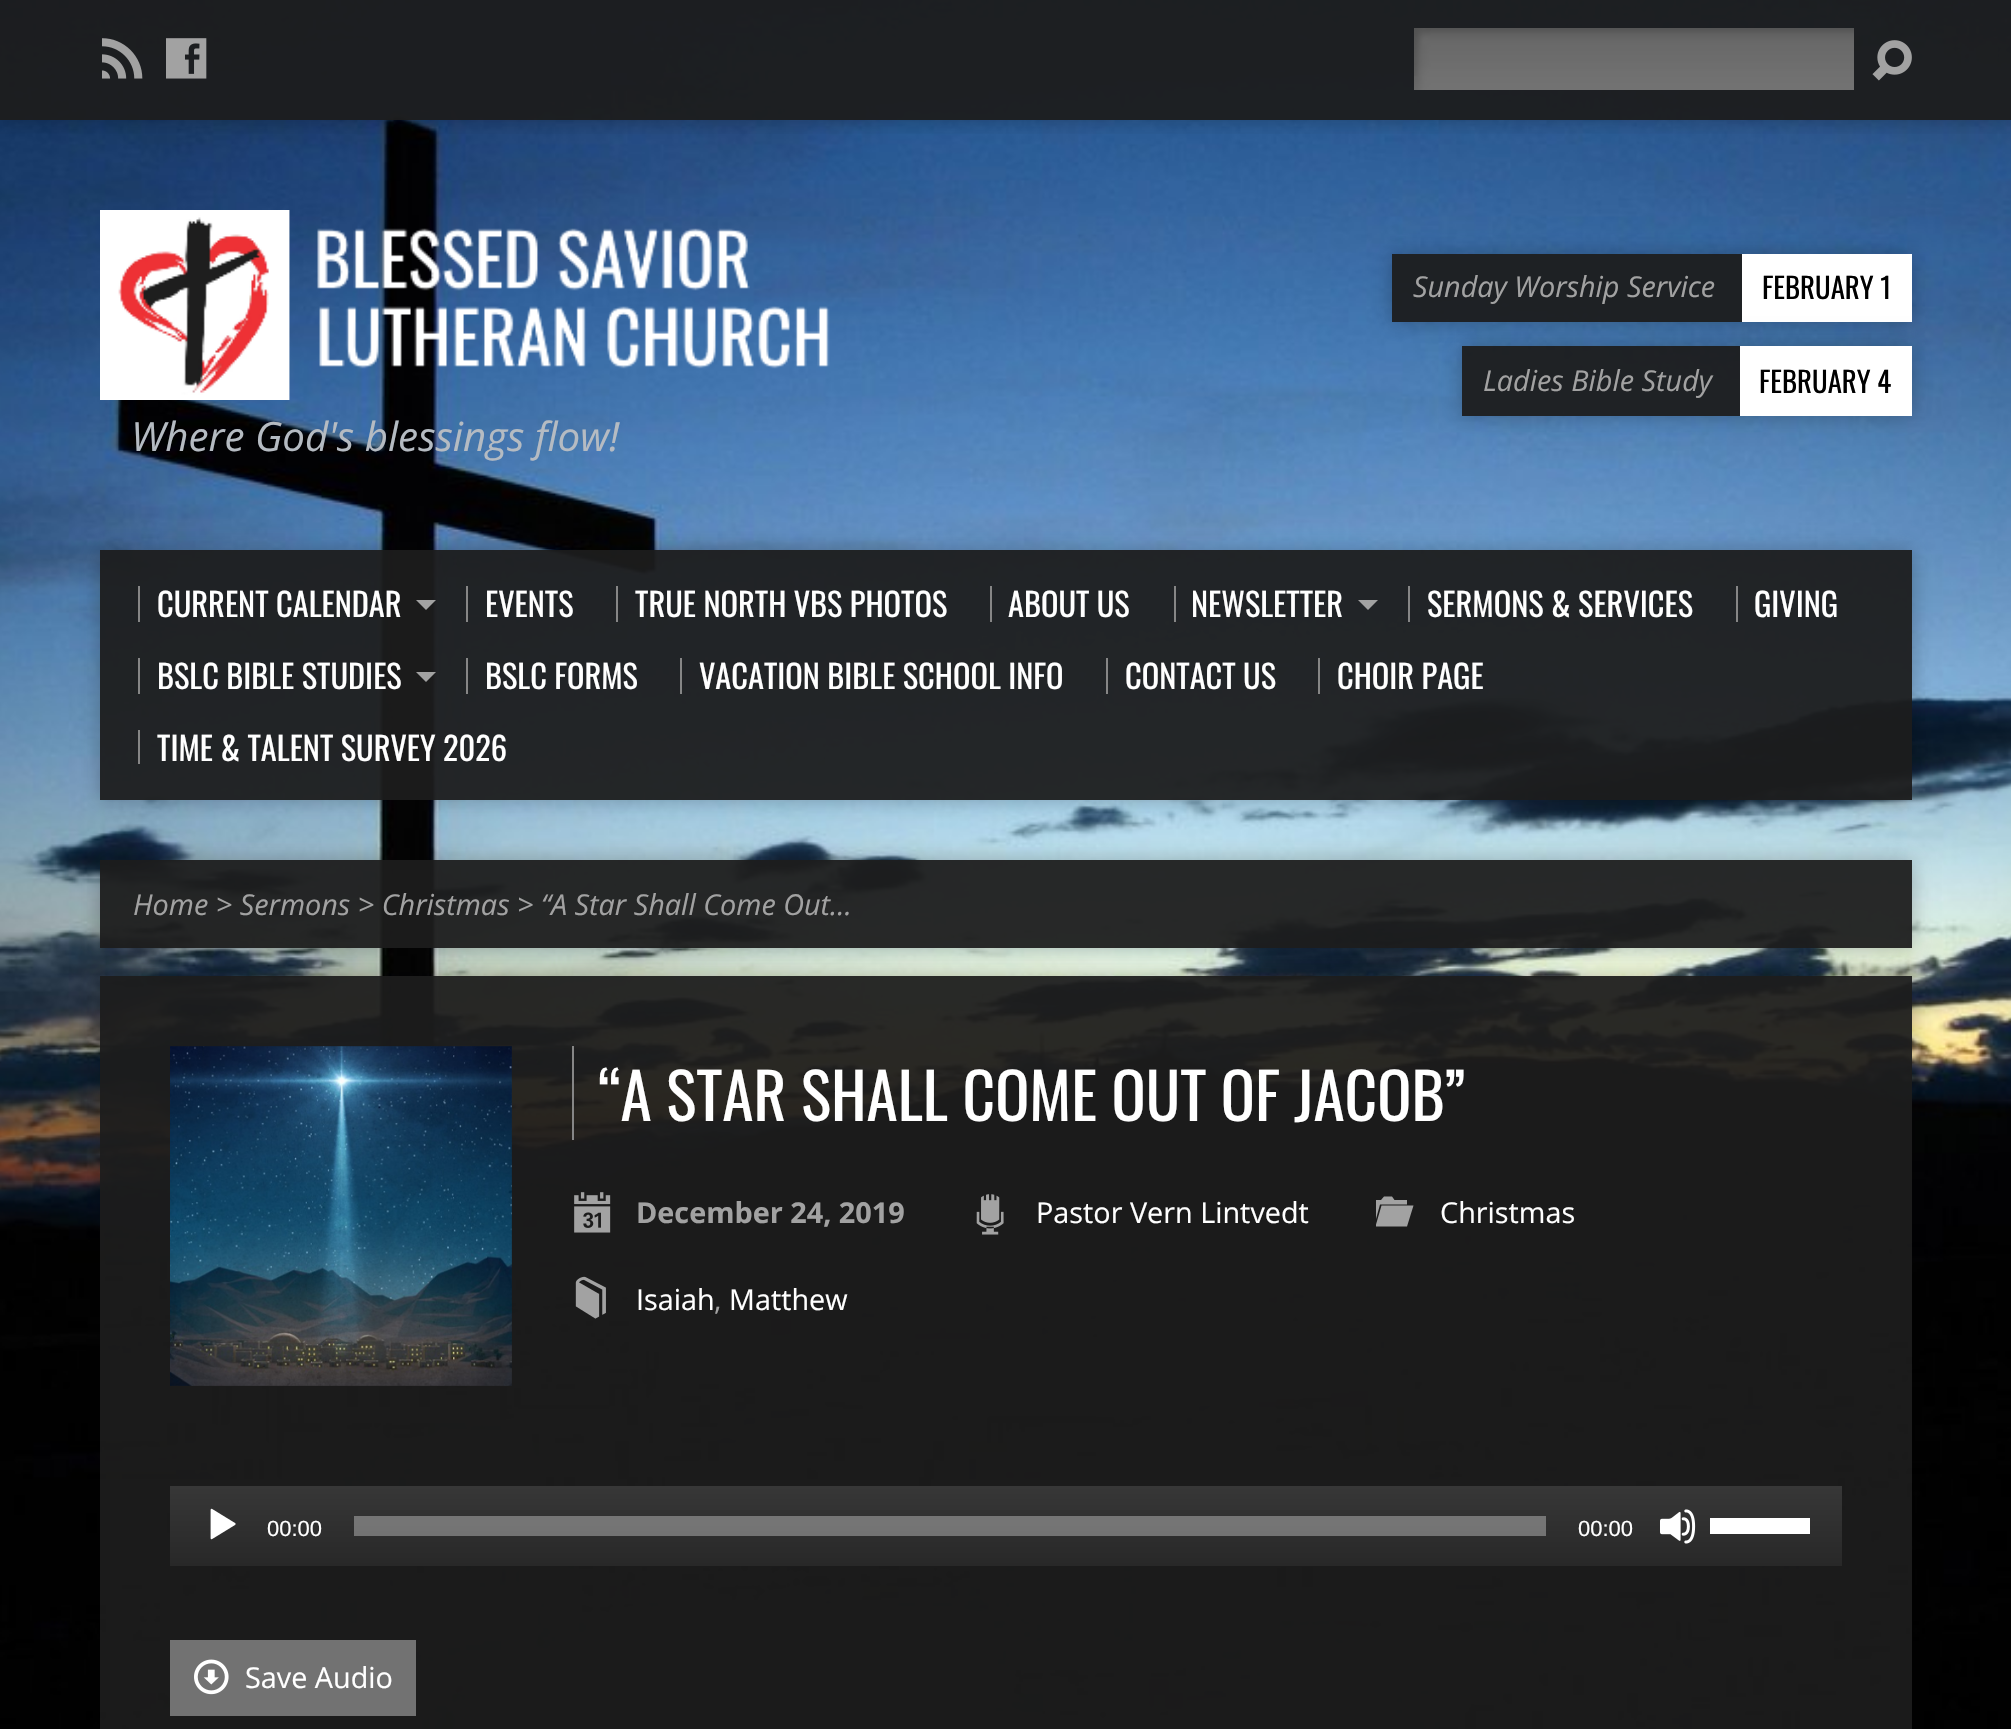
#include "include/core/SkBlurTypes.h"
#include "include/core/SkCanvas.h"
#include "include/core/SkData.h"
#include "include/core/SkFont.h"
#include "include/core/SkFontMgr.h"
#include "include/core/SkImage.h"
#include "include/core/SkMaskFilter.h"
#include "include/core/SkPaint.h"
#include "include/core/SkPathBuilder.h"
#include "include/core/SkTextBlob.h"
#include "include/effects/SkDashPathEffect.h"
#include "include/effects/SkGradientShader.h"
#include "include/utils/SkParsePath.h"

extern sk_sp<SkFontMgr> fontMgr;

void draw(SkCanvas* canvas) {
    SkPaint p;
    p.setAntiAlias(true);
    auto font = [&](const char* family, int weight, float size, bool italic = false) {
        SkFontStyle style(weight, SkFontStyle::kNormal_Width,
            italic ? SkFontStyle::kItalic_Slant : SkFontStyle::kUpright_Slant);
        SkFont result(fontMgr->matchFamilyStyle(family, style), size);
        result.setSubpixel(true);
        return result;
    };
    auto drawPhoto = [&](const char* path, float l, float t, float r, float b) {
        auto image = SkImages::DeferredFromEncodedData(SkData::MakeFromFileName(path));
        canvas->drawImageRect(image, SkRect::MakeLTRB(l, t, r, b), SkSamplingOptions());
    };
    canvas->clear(0xFFFFFFFF);
    drawPhoto("media/1.png", 0, 0, 2011, 1729);
    canvas->save();
    canvas->clipRect(SkRect::MakeLTRB(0, 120, 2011, 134));
    p.setColor(0x40000000);
    p.setMaskFilter(SkMaskFilter::MakeBlur(kNormal_SkBlurStyle, 10));
    canvas->drawRect(SkRect::MakeLTRB(0, 0, 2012, 120), p);
    p.setMaskFilter(nullptr);
    canvas->restore();
    p.setColor(0xF01C1C1C);
    canvas->drawRect(SkRect::MakeLTRB(0, 0, 2011, 120), p);
    drawPhoto("media/2.png", 102, 38, 143, 79);
    drawPhoto("media/3.png", 166, 38, 207, 79);
    drawPhoto("media/4.png", 1414, 28, 1854, 90);
    drawPhoto("media/5.png", 1872, 40, 1912, 81);
    canvas->save();
    canvas->clipPath(SkPathBuilder(SkPathFillType::kEvenOdd).moveTo(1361, 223).lineTo(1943, 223).lineTo(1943, 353).lineTo(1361, 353).close().moveTo(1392, 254).lineTo(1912, 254).lineTo(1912, 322).lineTo(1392, 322).close().detach(), true);
    p.setColor(0x40000000);
    p.setMaskFilter(SkMaskFilter::MakeBlur(kNormal_SkBlurStyle, 10));
    canvas->drawRect(SkRect::MakeLTRB(1392, 254, 1912, 322), p);
    p.setMaskFilter(nullptr);
    canvas->restore();
    p.setColor(0xF01C1C1C);
    canvas->drawRect(SkRect::MakeLTRB(1392, 254, 1742, 322), p);
    auto font1 = font("Open Sans", 400, 28.8f, true);
    p.setColor(0xFFA2A2A2);
    canvas->drawString("Sunday Worship Service", 1413, 297, font1, p);
    p.setColor(0xFFFFFFFF);
    canvas->drawRect(SkRect::MakeLTRB(1742, 254, 1912, 322), p);
    auto font2 = font("Oswald", 400, 28.8f);
    p.setColor(0xFF000000);
    canvas->drawString("FEBRUARY 1", 1762, 299, font2, p);
    canvas->save();
    canvas->clipPath(SkPathBuilder(SkPathFillType::kEvenOdd).moveTo(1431, 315).lineTo(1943, 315).lineTo(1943, 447).lineTo(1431, 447).close().moveTo(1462, 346).lineTo(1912, 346).lineTo(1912, 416).lineTo(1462, 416).close().detach(), true);
    p.setColor(0x40000000);
    p.setMaskFilter(SkMaskFilter::MakeBlur(kNormal_SkBlurStyle, 10));
    canvas->drawRect(SkRect::MakeLTRB(1462, 346, 1912, 416), p);
    p.setMaskFilter(nullptr);
    canvas->restore();
    p.setColor(0xF01C1C1C);
    canvas->drawRect(SkRect::MakeLTRB(1462, 346, 1740, 416), p);
    p.setColor(0xFFA2A2A2);
    canvas->drawString("Ladies Bible Study", 1483, 391, font1, p);
    p.setColor(0xFFFFFFFF);
    canvas->drawRect(SkRect::MakeLTRB(1740, 346, 1912, 416), p);
    p.setColor(0xFF000000);
    canvas->drawString("FEBRUARY 4", 1759, 393, font2, p);
    drawPhoto("media/6.png", 100, 210, 830, 400);
    auto font3 = font("Open Sans", 400, 40.25f, true);
    p.setColor(0xFFB5BBC2);
    canvas->drawString("Where God's blessings flow!", 131, 451, font3, p);
    canvas->save();
    canvas->clipPath(SkPathBuilder(SkPathFillType::kEvenOdd).moveTo(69, 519).lineTo(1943, 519).lineTo(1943, 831).lineTo(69, 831).close().moveTo(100, 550).lineTo(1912, 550).lineTo(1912, 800).lineTo(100, 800).close().detach(), true);
    p.setColor(0x40000000);
    p.setMaskFilter(SkMaskFilter::MakeBlur(kNormal_SkBlurStyle, 10));
    canvas->drawRect(SkRect::MakeLTRB(100, 550, 1912, 800), p);
    p.setMaskFilter(nullptr);
    canvas->restore();
    p.setColor(0xF01C1C1C);
    canvas->drawRect(SkRect::MakeLTRB(100, 550, 1912, 800), p);
    p.setColor(0xFF868686);
    canvas->drawRect(SkRect::MakeLTRB(138, 586, 140, 622), p);
    auto font4 = font("Oswald", 400, 32.4f);
    p.setColor(0xFFFFFFFF);
    canvas->drawString("CURRENT CALENDAR", 157, 617, font4, p);
    p.setColor(0xFFA2A2A2);
    canvas->drawPath(SkPathBuilder().moveTo(416, 600).lineTo(436, 600).lineTo(426, 610).close().detach(), p);
    p.setColor(0xFF868686);
    canvas->drawRect(SkRect::MakeLTRB(466, 586, 468, 622), p);
    p.setColor(0xFFFFFFFF);
    canvas->drawString("EVENTS", 485, 617, font4, p);
    p.setColor(0xFF868686);
    canvas->drawRect(SkRect::MakeLTRB(616, 586, 618, 622), p);
    p.setColor(0xFFFFFFFF);
    canvas->drawString("TRUE NORTH VBS PHOTOS", 635, 617, font4, p);
    p.setColor(0xFF868686);
    canvas->drawRect(SkRect::MakeLTRB(990, 586, 992, 622), p);
    p.setColor(0xFFFFFFFF);
    canvas->drawString("ABOUT US", 1008, 617, font4, p);
    p.setColor(0xFF868686);
    canvas->drawRect(SkRect::MakeLTRB(1174, 586, 1176, 622), p);
    p.setColor(0xFFFFFFFF);
    canvas->drawString("NEWSLETTER", 1191, 617, font4, p);
    p.setColor(0xFFA2A2A2);
    canvas->drawPath(SkPathBuilder().moveTo(1358, 600).lineTo(1378, 600).lineTo(1368, 610).close().detach(), p);
    p.setColor(0xFF868686);
    canvas->drawRect(SkRect::MakeLTRB(1408, 586, 1410, 622), p);
    p.setColor(0xFFFFFFFF);
    canvas->drawString("SERMONS & SERVICES", 1427, 617, font4, p);
    p.setColor(0xFF868686);
    canvas->drawRect(SkRect::MakeLTRB(1736, 586, 1738, 622), p);
    p.setColor(0xFFFFFFFF);
    canvas->drawString("GIVING", 1754, 617, font4, p);
    p.setColor(0xFF868686);
    canvas->drawRect(SkRect::MakeLTRB(138, 658, 140, 694), p);
    p.setColor(0xFFFFFFFF);
    canvas->drawString("BSLC BIBLE STUDIES", 157, 689, font4, p);
    p.setColor(0xFFA2A2A2);
    canvas->drawPath(SkPathBuilder().moveTo(416, 672).lineTo(436, 672).lineTo(426, 682).close().detach(), p);
    p.setColor(0xFF868686);
    canvas->drawRect(SkRect::MakeLTRB(466, 658, 468, 694), p);
    p.setColor(0xFFFFFFFF);
    canvas->drawString("BSLC FORMS", 485, 689, font4, p);
    p.setColor(0xFF868686);
    canvas->drawRect(SkRect::MakeLTRB(680, 658, 682, 694), p);
    p.setColor(0xFFFFFFFF);
    canvas->drawString("VACATION BIBLE SCHOOL INFO", 699, 689, font4, p);
    p.setColor(0xFF868686);
    canvas->drawRect(SkRect::MakeLTRB(1106, 658, 1108, 694), p);
    p.setColor(0xFFFFFFFF);
    canvas->drawString("CONTACT US", 1125, 689, font4, p);
    p.setColor(0xFF868686);
    canvas->drawRect(SkRect::MakeLTRB(1318, 658, 1320, 694), p);
    p.setColor(0xFFFFFFFF);
    canvas->drawString("CHOIR PAGE", 1337, 689, font4, p);
    p.setColor(0xFF868686);
    canvas->drawRect(SkRect::MakeLTRB(138, 730, 140, 764), p);
    p.setColor(0xFFFFFFFF);
    canvas->drawString("TIME & TALENT SURVEY 2026", 157, 761, font4, p);
    canvas->save();
    canvas->clipPath(SkPathBuilder(SkPathFillType::kEvenOdd).moveTo(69, 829).lineTo(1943, 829).lineTo(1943, 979).lineTo(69, 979).close().moveTo(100, 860).lineTo(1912, 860).lineTo(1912, 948).lineTo(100, 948).close().detach(), true);
    p.setColor(0x40000000);
    p.setMaskFilter(SkMaskFilter::MakeBlur(kNormal_SkBlurStyle, 10));
    canvas->drawRect(SkRect::MakeLTRB(100, 860, 1912, 948), p);
    p.setMaskFilter(nullptr);
    canvas->restore();
    p.setColor(0xF01C1C1C);
    canvas->drawRect(SkRect::MakeLTRB(100, 860, 1912, 948), p);
    p.setColor(0xFFA2A2A2);
    canvas->drawString("Home > Sermons > Christmas > “A Star Shall Come Out…", 133, 915, font1, p);
    canvas->save();
    canvas->clipPath(SkPathBuilder(SkPathFillType::kEvenOdd).moveTo(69, 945).lineTo(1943, 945).lineTo(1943, 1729).lineTo(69, 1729).close().moveTo(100, 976).lineTo(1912, 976).lineTo(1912, 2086).lineTo(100, 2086).close().detach(), true);
    p.setColor(0x40000000);
    p.setMaskFilter(SkMaskFilter::MakeBlur(kNormal_SkBlurStyle, 10));
    canvas->drawRect(SkRect::MakeLTRB(100, 976, 1912, 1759), p);
    p.setMaskFilter(nullptr);
    canvas->restore();
    p.setColor(0xF01C1C1C);
    canvas->drawRect(SkRect::MakeLTRB(100, 976, 1912, 1729), p);
    drawPhoto("media/7.png", 170, 1046, 512, 1386);
    p.setColor(0xFF868686);
    canvas->drawRect(SkRect::MakeLTRB(572, 1046, 574, 1140), p);
    auto font5 = font("Oswald", 400, 63.4f);
    p.setColor(0xFFFFFFFF);
    canvas->drawString("“A STAR SHALL COME OUT OF JACOB”", 598, 1121, font5, p);
    drawPhoto("media/8.png", 574, 1192, 611, 1233);
    auto font6 = font("Open Sans", 700, 28.8f);
    p.setColor(0xFFA2A2A2);
    canvas->drawString("December 24, 2019", 636, 1223, font6, p);
    drawPhoto("media/9.png", 976, 1194, 1004, 1235);
    auto font7 = font("Open Sans", 400, 28.8f);
    p.setColor(0xFFFFFFFF);
    canvas->drawString("Pastor Vern Lintvedt", 1036, 1223, font7, p);
    p.setColor(0xFFA2A2A2);
    canvas->drawPath(SkPathBuilder().moveTo(1384, 1196.5f).lineTo(1381, 1200).lineTo(1376, 1200).lineTo(1376, 1219).lineTo(1380, 1204.5f).lineTo(1407, 1204.5f).lineTo(1407, 1200).lineTo(1394.5f, 1200).lineTo(1392, 1196.5f).close().moveTo(1376, 1224.5f).lineTo(1376, 1226.5f).lineTo(1407, 1226.5f).lineTo(1413.5f, 1205.5f).lineTo(1381.5f, 1205.5f).close().detach(), p);
    p.setColor(0xFFFFFFFF);
    canvas->drawString("Christmas", 1440, 1223, font7, p);
    drawPhoto("media/10.png", 575, 1276, 606, 1319);
    canvas->drawString("Isaiah", 636, 1310, font7, p);
    p.setColor(0xFFA2A2A2);
    canvas->drawString(",", 714, 1310, font7, p);
    p.setColor(0xFFFFFFFF);
    canvas->drawString("Matthew", 729, 1310, font7, p);
    {
        const SkColor colors[] = {0xFF373737, 0xFF282828};
        const float stops[] = {0, 1};
        const SkPoint ends[] = {{1006, 1486}, {1006, 1566}};
        p.setShader(SkGradientShader::MakeLinear(ends, colors, stops, 2, SkTileMode::kClamp));
        p.setAlpha(255);
    }
    canvas->drawRect(SkRect::MakeLTRB(170, 1486, 1842, 1566), p);
    drawPhoto("media/11.png", 210, 1508, 236, 1540);
    auto font8 = font("Liberation Sans", 400, 22);
    p.setShader(nullptr);
    p.setColor(0xFFFFFFFF);
    canvas->drawString("00:00", 267, 1536, font8, p);
    p.setColor(0x54FFFFFF);
    canvas->drawRect(SkRect::MakeLTRB(354, 1516, 1546, 1536), p);
    p.setColor(0xFFFFFFFF);
    canvas->drawString("00:00", 1578, 1536, font8, p);
    drawPhoto("media/12.png", 1660, 1509, 1696, 1544);
    canvas->drawRect(SkRect::MakeLTRB(1710, 1518, 1810, 1534), p);
    p.setColor(0xFF727272);
    canvas->drawRect(SkRect::MakeLTRB(170, 1640, 416, 1716), p);
    drawPhoto("media/13.png", 194, 1659, 229, 1695);
    p.setColor(0xFFFFFFFF);
    canvas->drawString("Save Audio", 245, 1688, font7, p);
}
